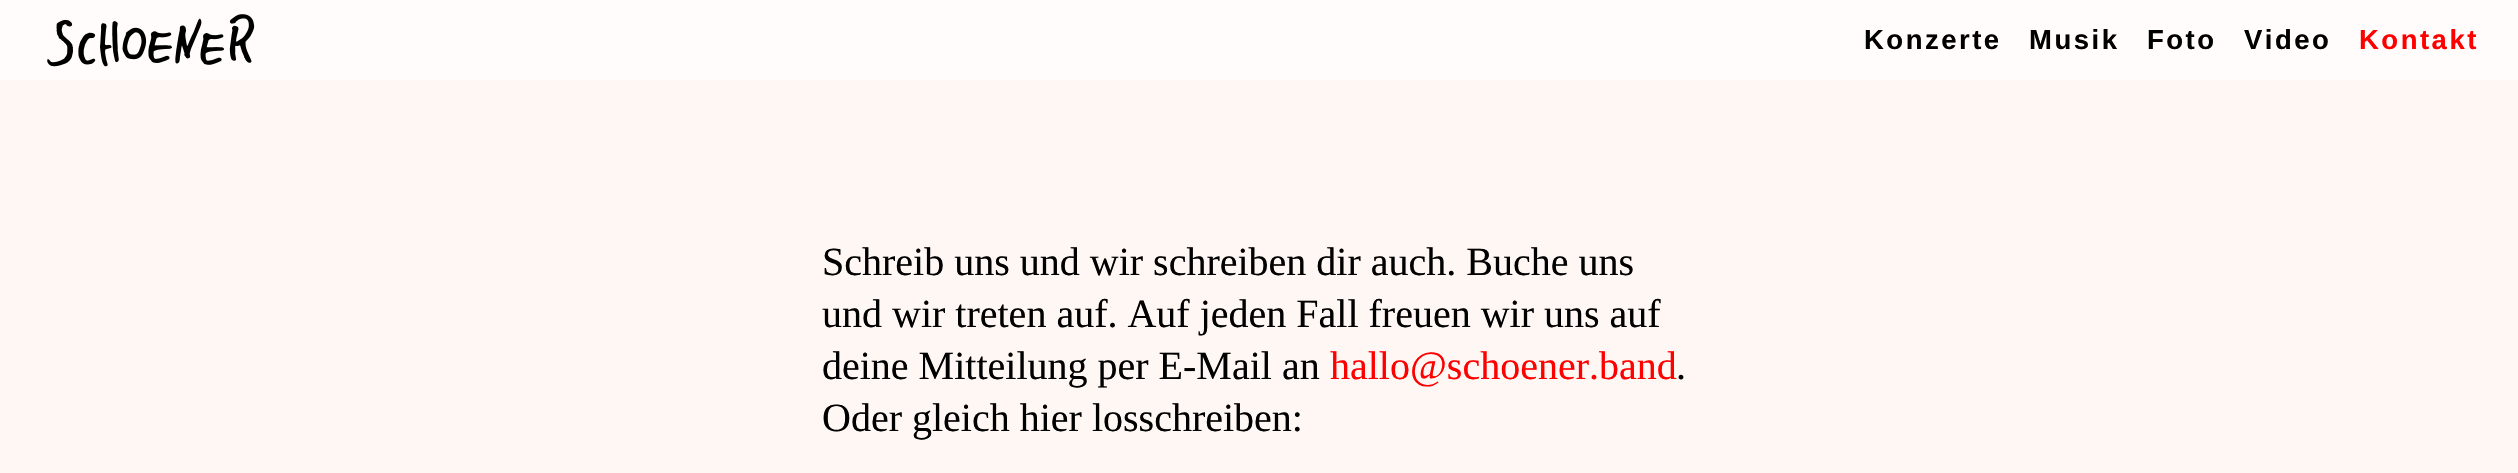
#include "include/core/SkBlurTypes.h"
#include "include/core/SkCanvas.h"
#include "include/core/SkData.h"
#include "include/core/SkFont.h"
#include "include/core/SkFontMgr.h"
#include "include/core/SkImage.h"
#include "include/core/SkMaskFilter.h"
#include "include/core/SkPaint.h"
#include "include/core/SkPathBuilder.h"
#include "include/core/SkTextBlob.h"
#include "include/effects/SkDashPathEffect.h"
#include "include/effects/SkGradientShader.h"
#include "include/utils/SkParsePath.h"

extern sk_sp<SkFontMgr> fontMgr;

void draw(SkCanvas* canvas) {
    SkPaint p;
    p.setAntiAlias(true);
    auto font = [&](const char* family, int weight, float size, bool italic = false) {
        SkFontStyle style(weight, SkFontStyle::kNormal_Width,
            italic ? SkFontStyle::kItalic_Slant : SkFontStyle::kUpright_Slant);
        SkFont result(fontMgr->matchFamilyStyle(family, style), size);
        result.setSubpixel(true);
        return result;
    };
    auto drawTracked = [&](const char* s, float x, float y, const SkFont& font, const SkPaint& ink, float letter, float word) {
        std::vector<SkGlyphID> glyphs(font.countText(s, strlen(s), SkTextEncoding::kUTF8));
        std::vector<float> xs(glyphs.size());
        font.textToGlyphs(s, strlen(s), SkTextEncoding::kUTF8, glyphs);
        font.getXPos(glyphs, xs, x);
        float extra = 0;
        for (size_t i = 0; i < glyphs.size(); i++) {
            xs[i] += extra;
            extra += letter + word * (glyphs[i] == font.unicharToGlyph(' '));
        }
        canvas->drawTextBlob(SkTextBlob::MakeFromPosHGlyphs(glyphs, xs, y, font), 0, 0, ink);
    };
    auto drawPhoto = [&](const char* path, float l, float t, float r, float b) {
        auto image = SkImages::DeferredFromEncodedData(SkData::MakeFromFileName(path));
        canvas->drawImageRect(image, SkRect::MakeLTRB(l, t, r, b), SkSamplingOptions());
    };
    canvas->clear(0xFFFFF7F4);
    p.setColor(0xFFFFFCFB);
    canvas->drawRect(SkRect::MakeLTRB(0, 0, 2518, 80), p);
    drawPhoto("media/1.png", 47, 14, 255, 67);
    auto font1 = font("Liberation Sans", 700, 27.5f);
    p.setColor(0xFF000000);
    {
        const struct { const char* s; float x, y; } items[] = {
            {"Konzerte", 1864, 49},
            {"Musik", 2029, 49},
            {"Foto", 2147, 49},
            {"Video", 2244, 49},
        };
        for (auto [s, x, y] : items) {
            drawTracked(s, x, y, font1, p, 2.5f, 0);
        }
    }
    p.setColor(0xFFFF0000);
    drawTracked("Kontakt", 2359, 49, font1, p, 2.5f, 0);
    auto font2 = font("Liberation Serif", 400, 40);
    p.setColor(0xFF000000);
    {
        const struct { const char* s; float x, y; } items[] = {
            {"Schreib uns und wir schreiben dir auch. Buche uns", 822, 275},
            {"und wir treten auf. Auf jeden Fall freuen wir uns auf", 822, 327},
            {"deine Mitteilung per E-Mail an", 822, 379},
        };
        for (auto [s, x, y] : items) {
            canvas->drawString(s, x, y, font2, p);
        }
    }
    p.setColor(0xFFFF0000);
    canvas->drawString("hallo@schoener.band", 1330, 379, font2, p);
    p.setColor(0xFF000000);
    canvas->drawString(".", 1676, 379, font2, p);
    canvas->drawString("Oder gleich hier losschreiben:", 822, 431, font2, p);
}
